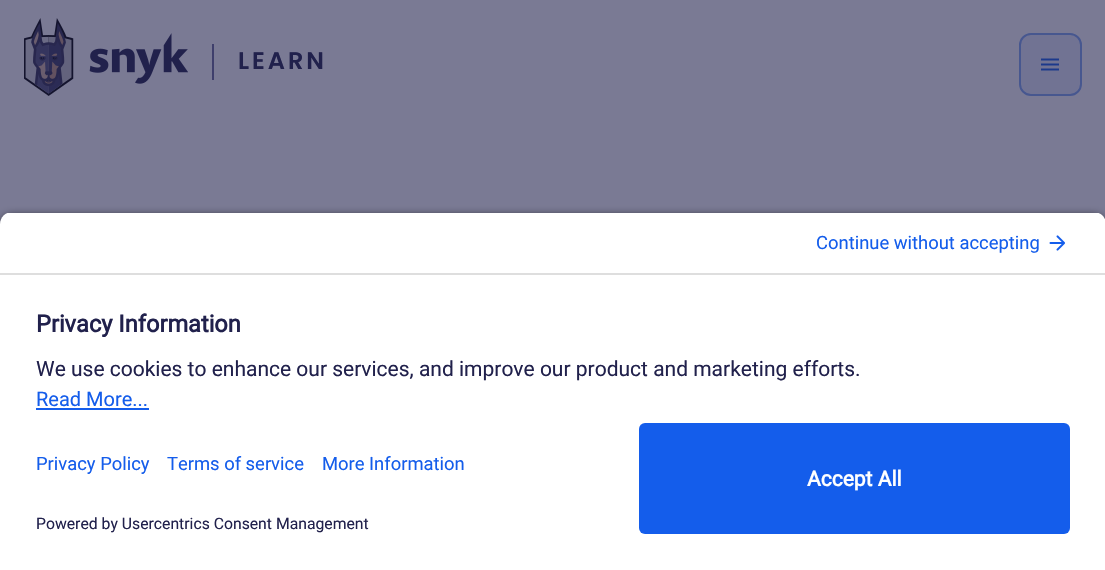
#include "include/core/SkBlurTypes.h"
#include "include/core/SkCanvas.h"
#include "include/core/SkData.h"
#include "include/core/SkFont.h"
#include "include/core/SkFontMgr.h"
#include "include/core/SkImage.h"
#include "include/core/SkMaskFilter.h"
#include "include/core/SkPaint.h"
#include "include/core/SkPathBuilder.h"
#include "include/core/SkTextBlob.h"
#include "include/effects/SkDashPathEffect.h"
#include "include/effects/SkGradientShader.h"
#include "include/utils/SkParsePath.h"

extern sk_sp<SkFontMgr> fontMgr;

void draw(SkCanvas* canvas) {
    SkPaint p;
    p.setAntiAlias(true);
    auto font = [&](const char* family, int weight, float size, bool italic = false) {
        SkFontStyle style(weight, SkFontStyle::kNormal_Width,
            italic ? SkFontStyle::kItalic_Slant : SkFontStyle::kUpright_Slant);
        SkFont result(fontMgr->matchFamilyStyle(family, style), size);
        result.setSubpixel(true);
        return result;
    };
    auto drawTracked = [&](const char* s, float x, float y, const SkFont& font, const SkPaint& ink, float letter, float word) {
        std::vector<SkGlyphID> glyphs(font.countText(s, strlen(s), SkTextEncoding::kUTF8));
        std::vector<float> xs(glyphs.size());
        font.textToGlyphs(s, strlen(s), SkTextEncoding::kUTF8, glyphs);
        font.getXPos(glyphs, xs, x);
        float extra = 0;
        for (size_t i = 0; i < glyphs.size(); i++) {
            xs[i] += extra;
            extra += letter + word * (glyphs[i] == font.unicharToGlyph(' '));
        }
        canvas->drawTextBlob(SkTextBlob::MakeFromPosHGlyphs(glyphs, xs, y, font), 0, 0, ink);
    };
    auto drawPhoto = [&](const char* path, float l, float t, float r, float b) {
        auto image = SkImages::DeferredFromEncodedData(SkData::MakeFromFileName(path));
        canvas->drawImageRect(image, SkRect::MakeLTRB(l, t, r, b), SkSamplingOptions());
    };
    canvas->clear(0xFF7A7A94);
    drawPhoto("media/1.png", 24, 18, 188, 96);
    p.setColor(0xFF3F3F6C);
    canvas->drawRect(SkRect::MakeLTRB(212, 44, 214, 80), p);
    auto font1 = font("Poppins", 600, 24);
    p.setColor(0xFF21214C);
    drawTracked("LEARN", 238, 69, font1, p, 3, 0);
    p.setColor(0xFF717393);
    canvas->drawRoundRect(SkRect::MakeLTRB(1019, 33, 1082, 96), 12, 12, p);
    p.setStyle(SkPaint::kStroke_Style);
    p.setStrokeWidth(2);
    p.setColor(0x801C398C);
    canvas->drawRoundRect(SkRect::MakeLTRB(1020, 34, 1081, 95), 11, 11, p);
    drawPhoto("media/2.png", 1041, 58, 1059, 71);
    p.setStyle(SkPaint::kFill_Style);
    p.setColor(0xCC000000);
    p.setMaskFilter(SkMaskFilter::MakeBlur(kNormal_SkBlurStyle, 5));
    canvas->drawRoundRect(SkRect::MakeLTRB(0, 216, 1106, 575), 12, 12, p);
    p.setMaskFilter(nullptr);
    canvas->save();
    canvas->clipPath(SkPathBuilder().moveTo(12, 212).lineTo(1094, 212).cubicTo(1100.5f, 212, 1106, 217.5f, 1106, 224).lineTo(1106, 411).lineTo(0, 411).lineTo(0, 224).cubicTo(0, 217.5f, 5.5f, 212, 12, 212).close().detach(), true);
    p.setColor(0xFFFFFFFF);
    canvas->drawRect(SkRect::MakeLTRB(0, 213, 1105, 273), p);
    canvas->restore();
    p.setColor(0xFFDEDEDE);
    canvas->drawRect(SkRect::MakeLTRB(0, 273, 1105, 275), p);
    auto font2 = font("Roboto", 400, 18.4f);
    p.setColor(0xFF145DEB);
    canvas->drawString("Continue without accepting", 816, 249, font2, p);
    drawPhoto("media/3.png", 1049, 235, 1065, 251);
    p.setColor(0xFFFFFFFF);
    canvas->drawRect(SkRect::MakeLTRB(0, 275, 1105, 570), p);
    auto font3 = font("Roboto", 700, 23.6f);
    p.setColor(0xFF21214C);
    canvas->drawString("Privacy Information", 36, 332, font3, p);
    auto font4 = font("Roboto", 400, 21);
    canvas->drawString("We use cookies to enhance our services, and improve our product and marketing efforts.", 36, 376, font4, p);
    auto font5 = font("Roboto", 400, 20);
    p.setColor(0xFF145DEB);
    canvas->drawString("Read More...", 36, 406, font5, p);
    canvas->drawRect(SkRect::MakeLTRB(36, 408, 149, 410), p);
    {
        const struct { const char* s; float x, y; } items[] = {
            {"Privacy Policy", 36, 470},
            {"Terms of service", 167, 470},
            {"More Information", 322, 470},
        };
        for (auto [s, x, y] : items) {
            canvas->drawString(s, x, y, font2, p);
        }
    }
    auto font6 = font("Roboto", 400, 15.75f);
    p.setColor(0xFF21214C);
    canvas->drawString("Powered by Usercentrics Consent Management", 36, 529, font6, p);
    p.setColor(0xFF145DEB);
    canvas->drawRoundRect(SkRect::MakeLTRB(639, 423, 1070, 534), 6, 6, p);
    auto font7 = font("Roboto", 700, 21);
    p.setColor(0xFFFFFFFF);
    canvas->drawString("Accept All", 807, 486, font7, p);
}
